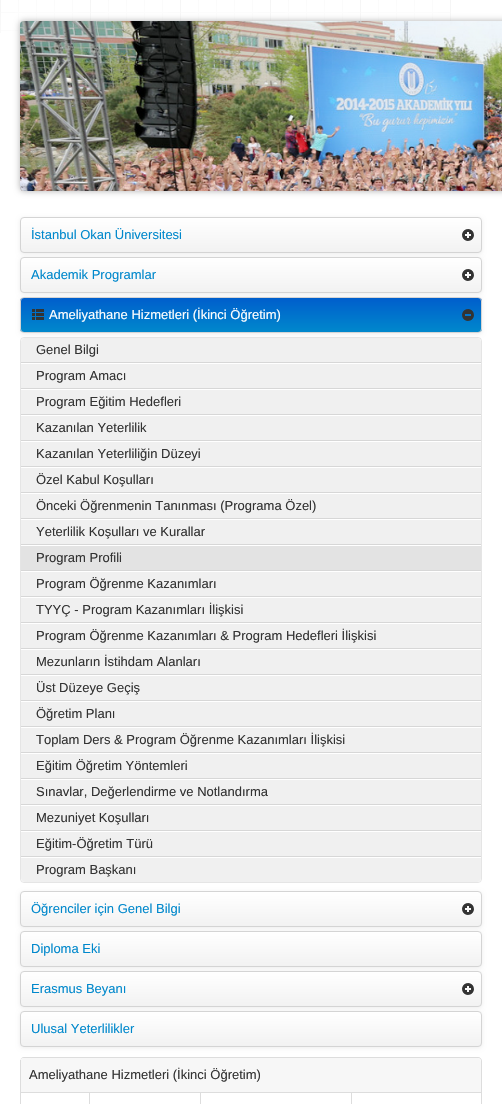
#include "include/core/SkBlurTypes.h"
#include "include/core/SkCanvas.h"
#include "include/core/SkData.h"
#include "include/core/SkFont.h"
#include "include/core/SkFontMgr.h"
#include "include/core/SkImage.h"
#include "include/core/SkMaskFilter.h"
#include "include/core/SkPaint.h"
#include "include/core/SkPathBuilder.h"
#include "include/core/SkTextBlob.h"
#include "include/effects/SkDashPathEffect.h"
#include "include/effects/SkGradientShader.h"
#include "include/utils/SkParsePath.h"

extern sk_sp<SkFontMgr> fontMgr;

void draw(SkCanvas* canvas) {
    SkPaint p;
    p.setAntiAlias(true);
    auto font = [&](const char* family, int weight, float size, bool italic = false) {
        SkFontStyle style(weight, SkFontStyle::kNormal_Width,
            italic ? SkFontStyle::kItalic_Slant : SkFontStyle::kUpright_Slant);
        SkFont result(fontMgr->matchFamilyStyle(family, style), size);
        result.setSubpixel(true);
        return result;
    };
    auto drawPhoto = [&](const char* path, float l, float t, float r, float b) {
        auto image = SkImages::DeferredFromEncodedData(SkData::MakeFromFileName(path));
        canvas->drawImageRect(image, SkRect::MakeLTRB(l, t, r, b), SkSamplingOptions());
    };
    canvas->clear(0xFFFFFFFF);
    drawPhoto("media/1.png", 0, 0, 451, 33);
    p.setColor(0xFFB0B0B0);
    p.setMaskFilter(SkMaskFilter::MakeBlur(kNormal_SkBlurStyle, 3));
    canvas->drawRoundRect(SkRect::MakeLTRB(20, 21, 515, 191), 4, 4, p);
    p.setMaskFilter(nullptr);
    drawPhoto("media/2.png", 20, 21, 502, 191);
    p.setColor(0x12000000);
    p.setMaskFilter(SkMaskFilter::MakeBlur(kNormal_SkBlurStyle, 2));
    canvas->drawRoundRect(SkRect::MakeLTRB(20, 218, 482, 254), 4, 4, p);
    p.setMaskFilter(nullptr);
    canvas->save();
    canvas->clipPath(SkPathBuilder().moveTo(24, 217).lineTo(478, 217).cubicTo(480, 217, 482, 219, 482, 221).lineTo(482, 249).cubicTo(482, 251, 480, 253, 478, 253).lineTo(24, 253).cubicTo(22, 253, 20, 251, 20, 249).lineTo(20, 221).cubicTo(20, 219, 22, 217, 24, 217).close().detach(), true);
    {
        const SkColor colors[] = {0xFFFFFFFF, 0xFFF2F2F2};
        const float stops[] = {0, 1};
        const SkPoint ends[] = {{251, 218}, {251, 252}};
        p.setShader(SkGradientShader::MakeLinear(ends, colors, stops, 2, SkTileMode::kClamp));
        p.setAlpha(255);
    }
    canvas->drawRect(SkRect::MakeLTRB(20, 218, 482, 252), p);
    canvas->restore();
    p.setStyle(SkPaint::kStroke_Style);
    p.setStrokeWidth(1);
    p.setShader(nullptr);
    p.setColor(0xFFD4D4D4);
    canvas->drawRoundRect(SkRect::MakeLTRB(20.5f, 217.5f, 481.5f, 252.5f), 3.5f, 3.5f, p);
    auto font1 = font("Liberation Sans", 400, 13);
    p.setStyle(SkPaint::kFill_Style);
    p.setColor(0xFF0088CC);
    canvas->drawString("İstanbul Okan Üniversitesi", 31, 239, font1, p);
    drawPhoto("media/3.png", 462, 229, 474, 241);
    p.setColor(0x12000000);
    p.setMaskFilter(SkMaskFilter::MakeBlur(kNormal_SkBlurStyle, 2));
    canvas->drawRoundRect(SkRect::MakeLTRB(20, 258, 482, 294), 4, 4, p);
    p.setMaskFilter(nullptr);
    canvas->save();
    canvas->clipPath(SkPathBuilder().moveTo(24, 257).lineTo(478, 257).cubicTo(480, 257, 482, 259, 482, 261).lineTo(482, 289).cubicTo(482, 291, 480, 293, 478, 293).lineTo(24, 293).cubicTo(22, 293, 20, 291, 20, 289).lineTo(20, 261).cubicTo(20, 259, 22, 257, 24, 257).close().detach(), true);
    {
        const SkColor colors[] = {0xFFFFFFFF, 0xFFF2F2F2};
        const float stops[] = {0, 1};
        const SkPoint ends[] = {{251, 258}, {251, 292}};
        p.setShader(SkGradientShader::MakeLinear(ends, colors, stops, 2, SkTileMode::kClamp));
        p.setAlpha(255);
    }
    canvas->drawRect(SkRect::MakeLTRB(20, 258, 482, 292), p);
    canvas->restore();
    p.setStyle(SkPaint::kStroke_Style);
    p.setShader(nullptr);
    p.setColor(0xFFD4D4D4);
    canvas->drawRoundRect(SkRect::MakeLTRB(20.5f, 257.5f, 481.5f, 292.5f), 3.5f, 3.5f, p);
    p.setStyle(SkPaint::kFill_Style);
    p.setColor(0xFF0088CC);
    canvas->drawString("Akademik Programlar", 31, 279, font1, p);
    drawPhoto("media/3.png", 462, 269, 474, 281);
    p.setStyle(SkPaint::kStroke_Style);
    p.setColor(0xFFE5E5E5);
    canvas->drawRoundRect(SkRect::MakeLTRB(20.5f, 337.5f, 481.5f, 882.5f), 3.5f, 3.5f, p);
    p.setStyle(SkPaint::kFill_Style);
    p.setColor(0xFFF0F0F0);
    canvas->drawPath(SkPathBuilder().moveTo(25, 338).lineTo(477, 338).cubicTo(479, 338, 481, 340, 481, 342).lineTo(481, 363).lineTo(21, 363).lineTo(21, 342).cubicTo(21, 340, 23, 338, 25, 338).close().detach(), p);
    p.setColor(0x12000000);
    p.setMaskFilter(SkMaskFilter::MakeBlur(kNormal_SkBlurStyle, 2));
    canvas->drawRoundRect(SkRect::MakeLTRB(20, 298, 482, 334), 4, 4, p);
    p.setMaskFilter(nullptr);
    canvas->save();
    canvas->clipPath(SkPathBuilder().moveTo(24, 297).lineTo(478, 297).cubicTo(480, 297, 482, 299, 482, 301).lineTo(482, 329).cubicTo(482, 331, 480, 333, 478, 333).lineTo(24, 333).cubicTo(22, 333, 20, 331, 20, 329).lineTo(20, 301).cubicTo(20, 299, 22, 297, 24, 297).close().detach(), true);
    {
        const SkColor colors[] = {0xFF005ECC, 0xFF0088CC};
        const float stops[] = {0, 1};
        const SkPoint ends[] = {{251, 298}, {251, 332}};
        p.setShader(SkGradientShader::MakeLinear(ends, colors, stops, 2, SkTileMode::kClamp));
        p.setAlpha(255);
    }
    canvas->drawRect(SkRect::MakeLTRB(20, 298, 482, 332), p);
    canvas->restore();
    p.setStyle(SkPaint::kStroke_Style);
    p.setShader(nullptr);
    p.setColor(0xFFD4D4D4);
    canvas->drawRoundRect(SkRect::MakeLTRB(20.5f, 297.5f, 481.5f, 332.5f), 3.5f, 3.5f, p);
    drawPhoto("media/4.png", 32, 309, 44, 320);
    p.setStyle(SkPaint::kFill_Style);
    p.setColor(0xFFFFFFFF);
    canvas->drawString("Ameliyathane Hizmetleri (İkinci Öğretim)", 49, 319, font1, p);
    drawPhoto("media/5.png", 462, 309, 474, 321);
    p.setColor(0xFFD7D7D7);
    canvas->drawRect(SkRect::MakeLTRB(21, 362, 481, 363), p);
    p.setColor(0xFF333333);
    canvas->drawString("Genel Bilgi", 36, 354, font1, p);
    p.setColor(0xFFF0F0F0);
    canvas->drawRect(SkRect::MakeLTRB(21, 364, 481, 388), p);
    p.setColor(0xFFD7D7D7);
    canvas->drawRect(SkRect::MakeLTRB(21, 388, 481, 389), p);
    p.setColor(0xFF333333);
    canvas->drawString("Program Amacı", 36, 380, font1, p);
    p.setColor(0xFFF0F0F0);
    canvas->drawRect(SkRect::MakeLTRB(21, 390, 481, 414), p);
    p.setColor(0xFFD7D7D7);
    canvas->drawRect(SkRect::MakeLTRB(21, 414, 481, 415), p);
    p.setColor(0xFF333333);
    canvas->drawString("Program Eğitim Hedefleri", 36, 406, font1, p);
    p.setColor(0xFFF0F0F0);
    canvas->drawRect(SkRect::MakeLTRB(21, 416, 481, 440), p);
    p.setColor(0xFFD7D7D7);
    canvas->drawRect(SkRect::MakeLTRB(21, 440, 481, 441), p);
    p.setColor(0xFF333333);
    canvas->drawString("Kazanılan Yeterlilik", 36, 432, font1, p);
    p.setColor(0xFFF0F0F0);
    canvas->drawRect(SkRect::MakeLTRB(21, 442, 481, 466), p);
    p.setColor(0xFFD7D7D7);
    canvas->drawRect(SkRect::MakeLTRB(21, 466, 481, 467), p);
    p.setColor(0xFF333333);
    canvas->drawString("Kazanılan Yeterliliğin Düzeyi", 36, 458, font1, p);
    p.setColor(0xFFF0F0F0);
    canvas->drawRect(SkRect::MakeLTRB(21, 468, 481, 492), p);
    p.setColor(0xFFD7D7D7);
    canvas->drawRect(SkRect::MakeLTRB(21, 492, 481, 493), p);
    p.setColor(0xFF333333);
    canvas->drawString("Özel Kabul Koşulları", 36, 484, font1, p);
    p.setColor(0xFFF0F0F0);
    canvas->drawRect(SkRect::MakeLTRB(21, 494, 481, 518), p);
    p.setColor(0xFFD7D7D7);
    canvas->drawRect(SkRect::MakeLTRB(21, 518, 481, 519), p);
    p.setColor(0xFF333333);
    canvas->drawString("Önceki Öğrenmenin Tanınması (Programa Özel)", 36, 510, font1, p);
    p.setColor(0xFFF0F0F0);
    canvas->drawRect(SkRect::MakeLTRB(21, 520, 481, 544), p);
    p.setColor(0xFFD7D7D7);
    canvas->drawRect(SkRect::MakeLTRB(21, 544, 481, 545), p);
    p.setColor(0xFF333333);
    canvas->drawString("Yeterlilik Koşulları ve Kurallar", 36, 536, font1, p);
    p.setColor(0xFFD7D7D7);
    canvas->drawRect(SkRect::MakeLTRB(21, 570, 481, 571), p);
    p.setColor(0xFFE3E3E3);
    canvas->drawRect(SkRect::MakeLTRB(21, 546, 481, 570), p);
    p.setColor(0xFF333333);
    canvas->drawString("Program Profili", 36, 562, font1, p);
    p.setColor(0xFFF0F0F0);
    canvas->drawRect(SkRect::MakeLTRB(21, 572, 481, 596), p);
    p.setColor(0xFFD7D7D7);
    canvas->drawRect(SkRect::MakeLTRB(21, 596, 481, 597), p);
    p.setColor(0xFF333333);
    canvas->drawString("Program Öğrenme Kazanımları", 36, 588, font1, p);
    p.setColor(0xFFF0F0F0);
    canvas->drawRect(SkRect::MakeLTRB(21, 598, 481, 622), p);
    p.setColor(0xFFD7D7D7);
    canvas->drawRect(SkRect::MakeLTRB(21, 622, 481, 623), p);
    p.setColor(0xFF333333);
    canvas->drawString("TYYÇ - Program Kazanımları İlişkisi", 36, 614, font1, p);
    p.setColor(0xFFF0F0F0);
    canvas->drawRect(SkRect::MakeLTRB(21, 624, 481, 648), p);
    p.setColor(0xFFD7D7D7);
    canvas->drawRect(SkRect::MakeLTRB(21, 648, 481, 649), p);
    p.setColor(0xFF333333);
    canvas->drawString("Program Öğrenme Kazanımları & Program Hedefleri İlişkisi", 36, 640, font1, p);
    p.setColor(0xFFF0F0F0);
    canvas->drawRect(SkRect::MakeLTRB(21, 650, 481, 674), p);
    p.setColor(0xFFD7D7D7);
    canvas->drawRect(SkRect::MakeLTRB(21, 674, 481, 675), p);
    p.setColor(0xFF333333);
    canvas->drawString("Mezunların İstihdam Alanları", 36, 666, font1, p);
    p.setColor(0xFFF0F0F0);
    canvas->drawRect(SkRect::MakeLTRB(21, 676, 481, 700), p);
    p.setColor(0xFFD7D7D7);
    canvas->drawRect(SkRect::MakeLTRB(21, 700, 481, 701), p);
    p.setColor(0xFF333333);
    canvas->drawString("Üst Düzeye Geçiş", 36, 692, font1, p);
    p.setColor(0xFFF0F0F0);
    canvas->drawRect(SkRect::MakeLTRB(21, 702, 481, 726), p);
    p.setColor(0xFFD7D7D7);
    canvas->drawRect(SkRect::MakeLTRB(21, 726, 481, 727), p);
    p.setColor(0xFF333333);
    canvas->drawString("Öğretim Planı", 36, 718, font1, p);
    p.setColor(0xFFF0F0F0);
    canvas->drawRect(SkRect::MakeLTRB(21, 728, 481, 752), p);
    p.setColor(0xFFD7D7D7);
    canvas->drawRect(SkRect::MakeLTRB(21, 752, 481, 753), p);
    p.setColor(0xFF333333);
    canvas->drawString("Toplam Ders & Program Öğrenme Kazanımları İlişkisi", 36, 744, font1, p);
    p.setColor(0xFFF0F0F0);
    canvas->drawRect(SkRect::MakeLTRB(21, 754, 481, 778), p);
    p.setColor(0xFFD7D7D7);
    canvas->drawRect(SkRect::MakeLTRB(21, 778, 481, 779), p);
    p.setColor(0xFF333333);
    canvas->drawString("Eğitim Öğretim Yöntemleri", 36, 770, font1, p);
    p.setColor(0xFFF0F0F0);
    canvas->drawRect(SkRect::MakeLTRB(21, 780, 481, 804), p);
    p.setColor(0xFFD7D7D7);
    canvas->drawRect(SkRect::MakeLTRB(21, 804, 481, 805), p);
    p.setColor(0xFF333333);
    canvas->drawString("Sınavlar, Değerlendirme ve Notlandırma", 36, 796, font1, p);
    p.setColor(0xFFF0F0F0);
    canvas->drawRect(SkRect::MakeLTRB(21, 806, 481, 830), p);
    p.setColor(0xFFD7D7D7);
    canvas->drawRect(SkRect::MakeLTRB(21, 830, 481, 831), p);
    p.setColor(0xFF333333);
    canvas->drawString("Mezuniyet Koşulları", 36, 822, font1, p);
    p.setColor(0xFFF0F0F0);
    canvas->drawRect(SkRect::MakeLTRB(21, 832, 481, 856), p);
    p.setColor(0xFFD7D7D7);
    canvas->drawRect(SkRect::MakeLTRB(21, 856, 481, 857), p);
    p.setColor(0xFF333333);
    canvas->drawString("Eğitim-Öğretim Türü", 36, 848, font1, p);
    p.setColor(0xFFF0F0F0);
    canvas->drawPath(SkPathBuilder().moveTo(21, 857).lineTo(481, 857).lineTo(481, 878).cubicTo(481, 880, 479, 882, 477, 882).lineTo(25, 882).cubicTo(23, 882, 21, 880, 21, 878).close().detach(), p);
    p.setColor(0xFFFFFFFF);
    canvas->drawRect(SkRect::MakeLTRB(21, 857, 481, 858), p);
    p.setColor(0xFF333333);
    canvas->drawString("Program Başkanı", 36, 874, font1, p);
    p.setColor(0x12000000);
    p.setMaskFilter(SkMaskFilter::MakeBlur(kNormal_SkBlurStyle, 2));
    canvas->drawRoundRect(SkRect::MakeLTRB(20, 892, 482, 928), 4, 4, p);
    p.setMaskFilter(nullptr);
    canvas->save();
    canvas->clipPath(SkPathBuilder().moveTo(24, 891).lineTo(478, 891).cubicTo(480, 891, 482, 893, 482, 895).lineTo(482, 923).cubicTo(482, 925, 480, 927, 478, 927).lineTo(24, 927).cubicTo(22, 927, 20, 925, 20, 923).lineTo(20, 895).cubicTo(20, 893, 22, 891, 24, 891).close().detach(), true);
    {
        const SkColor colors[] = {0xFFFFFFFF, 0xFFF2F2F2};
        const float stops[] = {0, 1};
        const SkPoint ends[] = {{251, 892}, {251, 926}};
        p.setShader(SkGradientShader::MakeLinear(ends, colors, stops, 2, SkTileMode::kClamp));
        p.setAlpha(255);
    }
    canvas->drawRect(SkRect::MakeLTRB(20, 892, 482, 926), p);
    canvas->restore();
    p.setStyle(SkPaint::kStroke_Style);
    p.setShader(nullptr);
    p.setColor(0xFFD4D4D4);
    canvas->drawRoundRect(SkRect::MakeLTRB(20.5f, 891.5f, 481.5f, 926.5f), 3.5f, 3.5f, p);
    p.setStyle(SkPaint::kFill_Style);
    p.setColor(0xFF0088CC);
    canvas->drawString("Öğrenciler için Genel Bilgi", 31, 913, font1, p);
    drawPhoto("media/3.png", 462, 903, 474, 915);
    p.setColor(0x12000000);
    p.setMaskFilter(SkMaskFilter::MakeBlur(kNormal_SkBlurStyle, 2));
    canvas->drawRoundRect(SkRect::MakeLTRB(20, 932, 482, 968), 4, 4, p);
    p.setMaskFilter(nullptr);
    canvas->save();
    canvas->clipPath(SkPathBuilder().moveTo(24, 931).lineTo(478, 931).cubicTo(480, 931, 482, 933, 482, 935).lineTo(482, 963).cubicTo(482, 965, 480, 967, 478, 967).lineTo(24, 967).cubicTo(22, 967, 20, 965, 20, 963).lineTo(20, 935).cubicTo(20, 933, 22, 931, 24, 931).close().detach(), true);
    {
        const SkColor colors[] = {0xFFFFFFFF, 0xFFF2F2F2};
        const float stops[] = {0, 1};
        const SkPoint ends[] = {{251, 932}, {251, 966}};
        p.setShader(SkGradientShader::MakeLinear(ends, colors, stops, 2, SkTileMode::kClamp));
        p.setAlpha(255);
    }
    canvas->drawRect(SkRect::MakeLTRB(20, 932, 482, 966), p);
    canvas->restore();
    p.setStyle(SkPaint::kStroke_Style);
    p.setShader(nullptr);
    p.setColor(0xFFD4D4D4);
    canvas->drawRoundRect(SkRect::MakeLTRB(20.5f, 931.5f, 481.5f, 966.5f), 3.5f, 3.5f, p);
    p.setStyle(SkPaint::kFill_Style);
    p.setColor(0xFF0088CC);
    canvas->drawString("Diploma Eki", 31, 953, font1, p);
    p.setColor(0x12000000);
    p.setMaskFilter(SkMaskFilter::MakeBlur(kNormal_SkBlurStyle, 2));
    canvas->drawRoundRect(SkRect::MakeLTRB(20, 972, 482, 1008), 4, 4, p);
    p.setMaskFilter(nullptr);
    canvas->save();
    canvas->clipPath(SkPathBuilder().moveTo(24, 971).lineTo(478, 971).cubicTo(480, 971, 482, 973, 482, 975).lineTo(482, 1003).cubicTo(482, 1005, 480, 1007, 478, 1007).lineTo(24, 1007).cubicTo(22, 1007, 20, 1005, 20, 1003).lineTo(20, 975).cubicTo(20, 973, 22, 971, 24, 971).close().detach(), true);
    {
        const SkColor colors[] = {0xFFFFFFFF, 0xFFF2F2F2};
        const float stops[] = {0, 1};
        const SkPoint ends[] = {{251, 972}, {251, 1006}};
        p.setShader(SkGradientShader::MakeLinear(ends, colors, stops, 2, SkTileMode::kClamp));
        p.setAlpha(255);
    }
    canvas->drawRect(SkRect::MakeLTRB(20, 972, 482, 1006), p);
    canvas->restore();
    p.setStyle(SkPaint::kStroke_Style);
    p.setShader(nullptr);
    p.setColor(0xFFD4D4D4);
    canvas->drawRoundRect(SkRect::MakeLTRB(20.5f, 971.5f, 481.5f, 1006.5f), 3.5f, 3.5f, p);
    p.setStyle(SkPaint::kFill_Style);
    p.setColor(0xFF0088CC);
    canvas->drawString("Erasmus Beyanı", 31, 993, font1, p);
    drawPhoto("media/3.png", 462, 983, 474, 995);
    p.setColor(0x12000000);
    p.setMaskFilter(SkMaskFilter::MakeBlur(kNormal_SkBlurStyle, 2));
    canvas->drawRoundRect(SkRect::MakeLTRB(20, 1012, 482, 1048), 4, 4, p);
    p.setMaskFilter(nullptr);
    canvas->save();
    canvas->clipPath(SkPathBuilder().moveTo(24, 1011).lineTo(478, 1011).cubicTo(480, 1011, 482, 1013, 482, 1015).lineTo(482, 1043).cubicTo(482, 1045, 480, 1047, 478, 1047).lineTo(24, 1047).cubicTo(22, 1047, 20, 1045, 20, 1043).lineTo(20, 1015).cubicTo(20, 1013, 22, 1011, 24, 1011).close().detach(), true);
    {
        const SkColor colors[] = {0xFFFFFFFF, 0xFFF2F2F2};
        const float stops[] = {0, 1};
        const SkPoint ends[] = {{251, 1012}, {251, 1046}};
        p.setShader(SkGradientShader::MakeLinear(ends, colors, stops, 2, SkTileMode::kClamp));
        p.setAlpha(255);
    }
    canvas->drawRect(SkRect::MakeLTRB(20, 1012, 482, 1046), p);
    canvas->restore();
    p.setStyle(SkPaint::kStroke_Style);
    p.setShader(nullptr);
    p.setColor(0xFFD4D4D4);
    canvas->drawRoundRect(SkRect::MakeLTRB(20.5f, 1011.5f, 481.5f, 1046.5f), 3.5f, 3.5f, p);
    p.setStyle(SkPaint::kFill_Style);
    p.setColor(0xFF0088CC);
    canvas->drawString("Ulusal Yeterlilikler", 31, 1033, font1, p);
    p.setColor(0xFFDDDDDD);
    canvas->drawPath(SkPathBuilder(SkPathFillType::kEvenOdd).moveTo(24, 1057).lineTo(478, 1057).cubicTo(480, 1057, 482, 1059, 482, 1061).lineTo(482, 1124).cubicTo(482, 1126, 480, 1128, 478, 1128).lineTo(24, 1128).cubicTo(22, 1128, 20, 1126, 20, 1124).lineTo(20, 1061).cubicTo(20, 1059, 22, 1057, 24, 1057).close().moveTo(24, 1058).lineTo(478, 1058).cubicTo(480, 1058, 481, 1059, 481, 1061).lineTo(481, 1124).cubicTo(481, 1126, 480, 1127, 478, 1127).lineTo(24, 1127).cubicTo(22, 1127, 20, 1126, 20, 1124).lineTo(20, 1061).cubicTo(20, 1059, 22, 1058, 24, 1058).close().detach(), p);
    p.setColor(0xFFF7F7F7);
    canvas->drawPath(SkPathBuilder().moveTo(24, 1058).lineTo(477, 1058).cubicTo(479, 1058, 481, 1060, 481, 1062).lineTo(481, 1092).lineTo(20, 1092).lineTo(20, 1062).cubicTo(20, 1060, 22, 1058, 24, 1058).close().detach(), p);
    p.setColor(0xFFDDDDDD);
    canvas->drawRect(SkRect::MakeLTRB(20, 1060, 21, 1092), p);
    p.setColor(0xFF333333);
    canvas->drawString("Ameliyathane Hizmetleri (İkinci Öğretim)", 29, 1079, font1, p);
    {
        const struct { float l, t, r, b; SkColor color; } items[] = {
            {20, 1092, 481, 1093, 0xFFDDDDDD},
            {20, 1092, 21, 1104, 0xFFDDDDDD},
            {89, 1092, 90, 1104, 0xFFDDDDDD},
            {200, 1092, 201, 1104, 0xFFDDDDDD},
            {351, 1092, 352, 1104, 0xFFDDDDDD},
        };
        for (auto [l, t, r, b, color] : items) {
            p.setColor(color);
            canvas->drawRect(SkRect::MakeLTRB(l, t, r, b), p);
        }
    }
}
